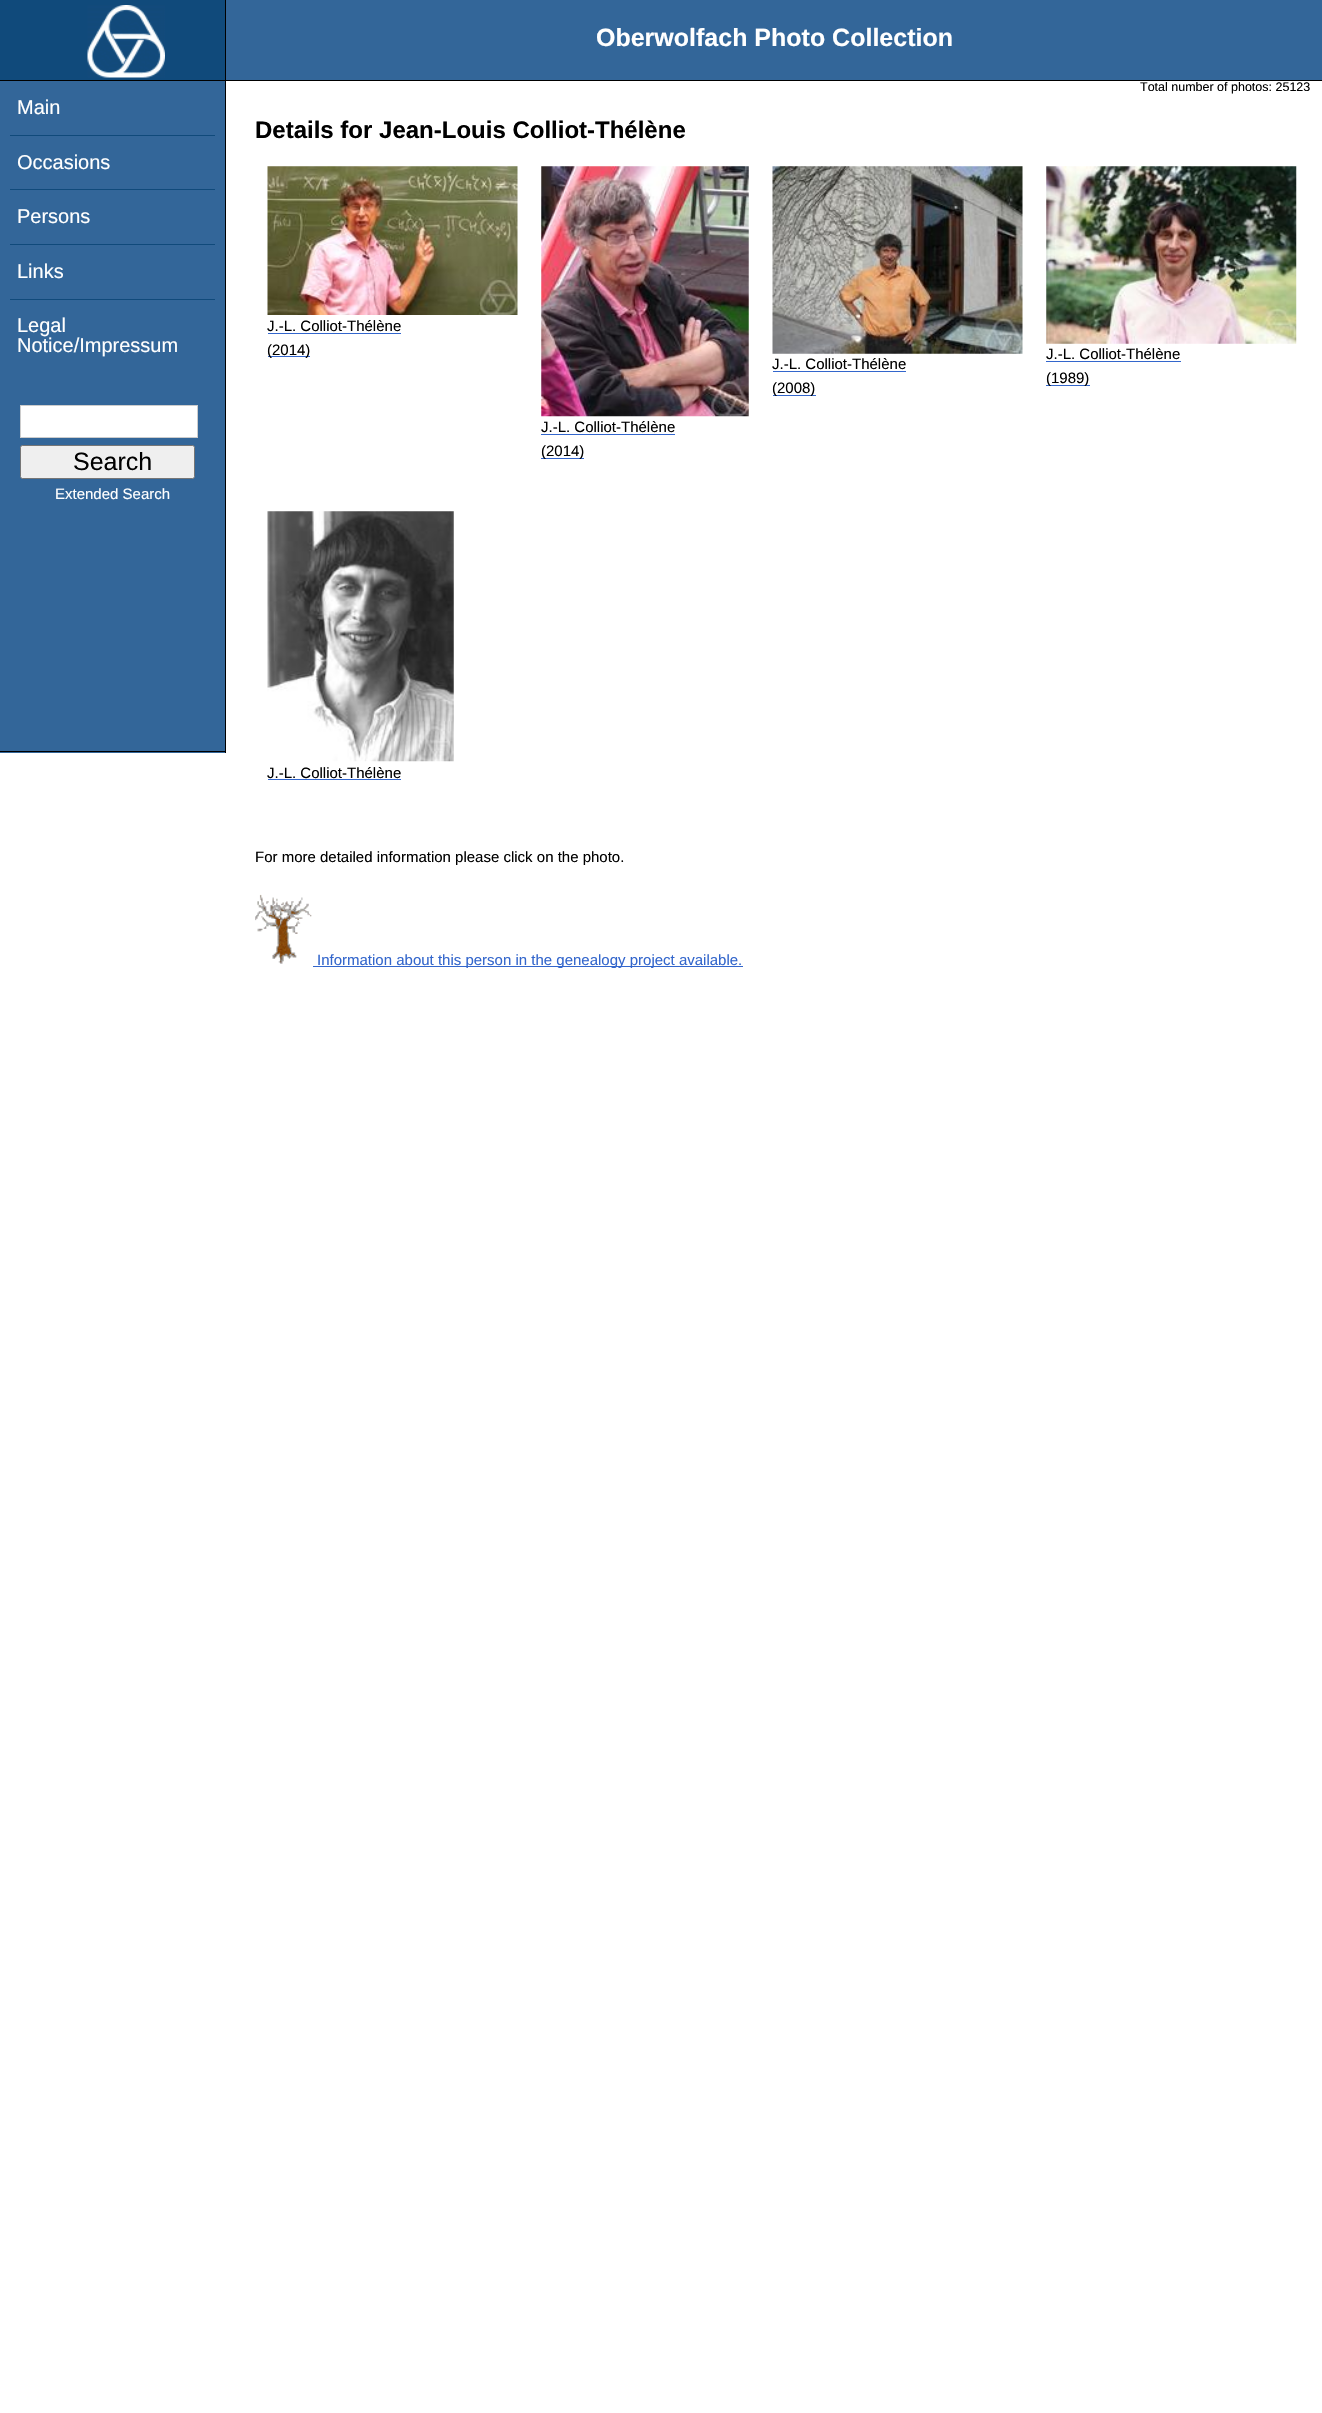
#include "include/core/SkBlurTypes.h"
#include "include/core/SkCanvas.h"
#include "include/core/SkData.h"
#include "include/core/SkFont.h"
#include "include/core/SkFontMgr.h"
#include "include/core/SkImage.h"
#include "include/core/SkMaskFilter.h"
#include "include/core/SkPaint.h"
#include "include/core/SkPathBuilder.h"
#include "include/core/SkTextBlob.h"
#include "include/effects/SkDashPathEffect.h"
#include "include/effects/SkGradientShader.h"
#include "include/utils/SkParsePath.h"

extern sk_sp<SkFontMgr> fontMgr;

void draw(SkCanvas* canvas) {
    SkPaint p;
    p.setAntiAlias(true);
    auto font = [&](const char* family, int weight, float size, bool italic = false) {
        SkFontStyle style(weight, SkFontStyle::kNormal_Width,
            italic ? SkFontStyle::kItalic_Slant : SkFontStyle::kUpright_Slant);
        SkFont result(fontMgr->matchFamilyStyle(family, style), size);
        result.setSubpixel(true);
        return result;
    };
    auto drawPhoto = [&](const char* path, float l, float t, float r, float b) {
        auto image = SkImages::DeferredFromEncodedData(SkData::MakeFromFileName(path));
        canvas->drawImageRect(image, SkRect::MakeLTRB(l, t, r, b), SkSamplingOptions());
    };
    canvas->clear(0xFFFFFFFF);
    {
        const struct { float l, t, r, b; SkColor color; } items[] = {
            {226, 0, 1322, 80, 0xFF336699},
            {0, 80, 1322, 81, 0xFF000000},
            {0, 0, 225, 80, 0xFF104A7B},
            {225, 0, 226, 80, 0xFF000000},
        };
        for (auto [l, t, r, b, color] : items) {
            p.setColor(color);
            canvas->drawRect(SkRect::MakeLTRB(l, t, r, b), p);
        }
    }
    drawPhoto("media/1.png", 87, 5, 165, 78);
    auto font1 = font("Liberation Sans", 700, 25);
    p.setColor(0xFFFFFFFF);
    canvas->drawString("Oberwolfach Photo Collection", 596, 46, font1, p);
    auto font2 = font("Liberation Sans", 400, 12.5f);
    p.setColor(0xFF000000);
    canvas->drawString("Total number of photos: 25123", 1140, 91, font2, p);
    {
        const struct { float l, t, r, b; SkColor color; } items[] = {
            {0, 81, 225, 753, 0xFF336699},
            {225, 81, 226, 753, 0xFF000000},
            {0, 751, 226, 752, 0xFF000000},
        };
        for (auto [l, t, r, b, color] : items) {
            p.setColor(color);
            canvas->drawRect(SkRect::MakeLTRB(l, t, r, b), p);
        }
    }
    auto font3 = font("Liberation Sans", 400, 20);
    p.setColor(0xFFFFFFFF);
    canvas->drawString("Main", 17, 114, font3, p);
    p.setColor(0xFF104A7B);
    canvas->drawRect(SkRect::MakeLTRB(10, 135, 215, 136), p);
    p.setColor(0xFFFFFFFF);
    canvas->drawString("Occasions", 17, 169, font3, p);
    p.setColor(0xFF104A7B);
    canvas->drawRect(SkRect::MakeLTRB(10, 189, 215, 190), p);
    p.setColor(0xFFFFFFFF);
    canvas->drawString("Persons", 17, 223, font3, p);
    p.setColor(0xFF104A7B);
    canvas->drawRect(SkRect::MakeLTRB(10, 244, 215, 245), p);
    p.setColor(0xFFFFFFFF);
    canvas->drawString("Links", 17, 278, font3, p);
    p.setColor(0xFF104A7B);
    canvas->drawRect(SkRect::MakeLTRB(10, 299, 215, 300), p);
    p.setColor(0xFFFFFFFF);
    canvas->drawString("Legal", 17, 332, font3, p);
    canvas->drawString("Notice/Impressum", 17, 352, font3, p);
    canvas->drawRect(SkRect::MakeLTRB(20.5f, 405.5f, 197.5f, 437.5f), p);
    p.setStyle(SkPaint::kStroke_Style);
    p.setStrokeWidth(1);
    p.setColor(0xFFCCCCCC);
    canvas->drawRect(SkRect::MakeLTRB(20.5f, 405.5f, 197.5f, 437.5f), p);
    p.setStyle(SkPaint::kFill_Style);
    p.setColor(0xFFEFEFEF);
    canvas->drawRoundRect(SkRect::MakeLTRB(20.5f, 445.5f, 194.5f, 478.5f), 2, 2, p);
    p.setStyle(SkPaint::kStroke_Style);
    p.setColor(0xFF767676);
    canvas->drawRoundRect(SkRect::MakeLTRB(20.5f, 445.5f, 194.5f, 478.5f), 2, 2, p);
    auto font4 = font("Liberation Sans", 400, 25);
    p.setStyle(SkPaint::kFill_Style);
    p.setColor(0xFF000000);
    canvas->drawString("Search", 73, 470, font4, p);
    auto font5 = font("Liberation Sans", 400, 15);
    p.setColor(0xFFFFFFFF);
    canvas->drawString("Extended Search", 55, 499, font5, p);
    auto font6 = font("Liberation Sans", 700, 24);
    p.setColor(0xFF000000);
    canvas->drawString("Details for Jean-Louis Colliot-Thélène", 255, 138, font6, p);
    drawPhoto("media/2.png", 267, 166, 518, 315);
    canvas->drawString("J.-L. Colliot-Thélène", 267, 331, font5, p);
    p.setColor(0xFF3366CC);
    canvas->drawRect(SkRect::MakeLTRB(268, 333, 401, 334), p);
    canvas->drawRect(SkRect::MakeLTRB(268, 356, 310, 357), p);
    p.setColor(0xFF000000);
    canvas->drawString("(2014)", 267, 355, font5, p);
    drawPhoto("media/3.png", 772, 166, 1023, 354);
    canvas->drawString("J.-L. Colliot-Thélène", 772, 369, font5, p);
    p.setColor(0xFF3366CC);
    canvas->drawRect(SkRect::MakeLTRB(773, 371, 906, 372), p);
    canvas->drawRect(SkRect::MakeLTRB(773, 395, 816, 396), p);
    p.setColor(0xFF000000);
    canvas->drawString("(2008)", 772, 393, font5, p);
    drawPhoto("media/4.png", 1046, 166, 1297, 344);
    canvas->drawString("J.-L. Colliot-Thélène", 1046, 359, font5, p);
    p.setColor(0xFF3366CC);
    canvas->drawRect(SkRect::MakeLTRB(1046, 361, 1181, 362), p);
    canvas->drawRect(SkRect::MakeLTRB(1046, 385, 1090, 386), p);
    p.setColor(0xFF000000);
    canvas->drawString("(1989)", 1046, 383, font5, p);
    drawPhoto("media/5.png", 541, 166, 749, 417);
    canvas->drawString("J.-L. Colliot-Thélène", 541, 432, font5, p);
    p.setColor(0xFF3366CC);
    canvas->drawRect(SkRect::MakeLTRB(541, 434, 675, 435), p);
    canvas->drawRect(SkRect::MakeLTRB(541, 458, 584, 459), p);
    p.setColor(0xFF000000);
    canvas->drawString("(2014)", 541, 456, font5, p);
    drawPhoto("media/6.png", 267, 511, 454, 762);
    canvas->drawString("J.-L. Colliot-Thélène", 267, 778, font5, p);
    p.setColor(0xFF3366CC);
    canvas->drawRect(SkRect::MakeLTRB(268, 779, 401, 780), p);
    p.setColor(0xFF000000);
    canvas->drawString("For more detailed information please click on the photo.", 255, 862, font5, p);
    drawPhoto("media/7.png", 255, 894, 312, 964);
    p.setColor(0xFF3366CC);
    canvas->drawRect(SkRect::MakeLTRB(313, 966, 743, 967), p);
    canvas->drawString("Information about this person in the genealogy project available.", 317, 965, font5, p);
}
